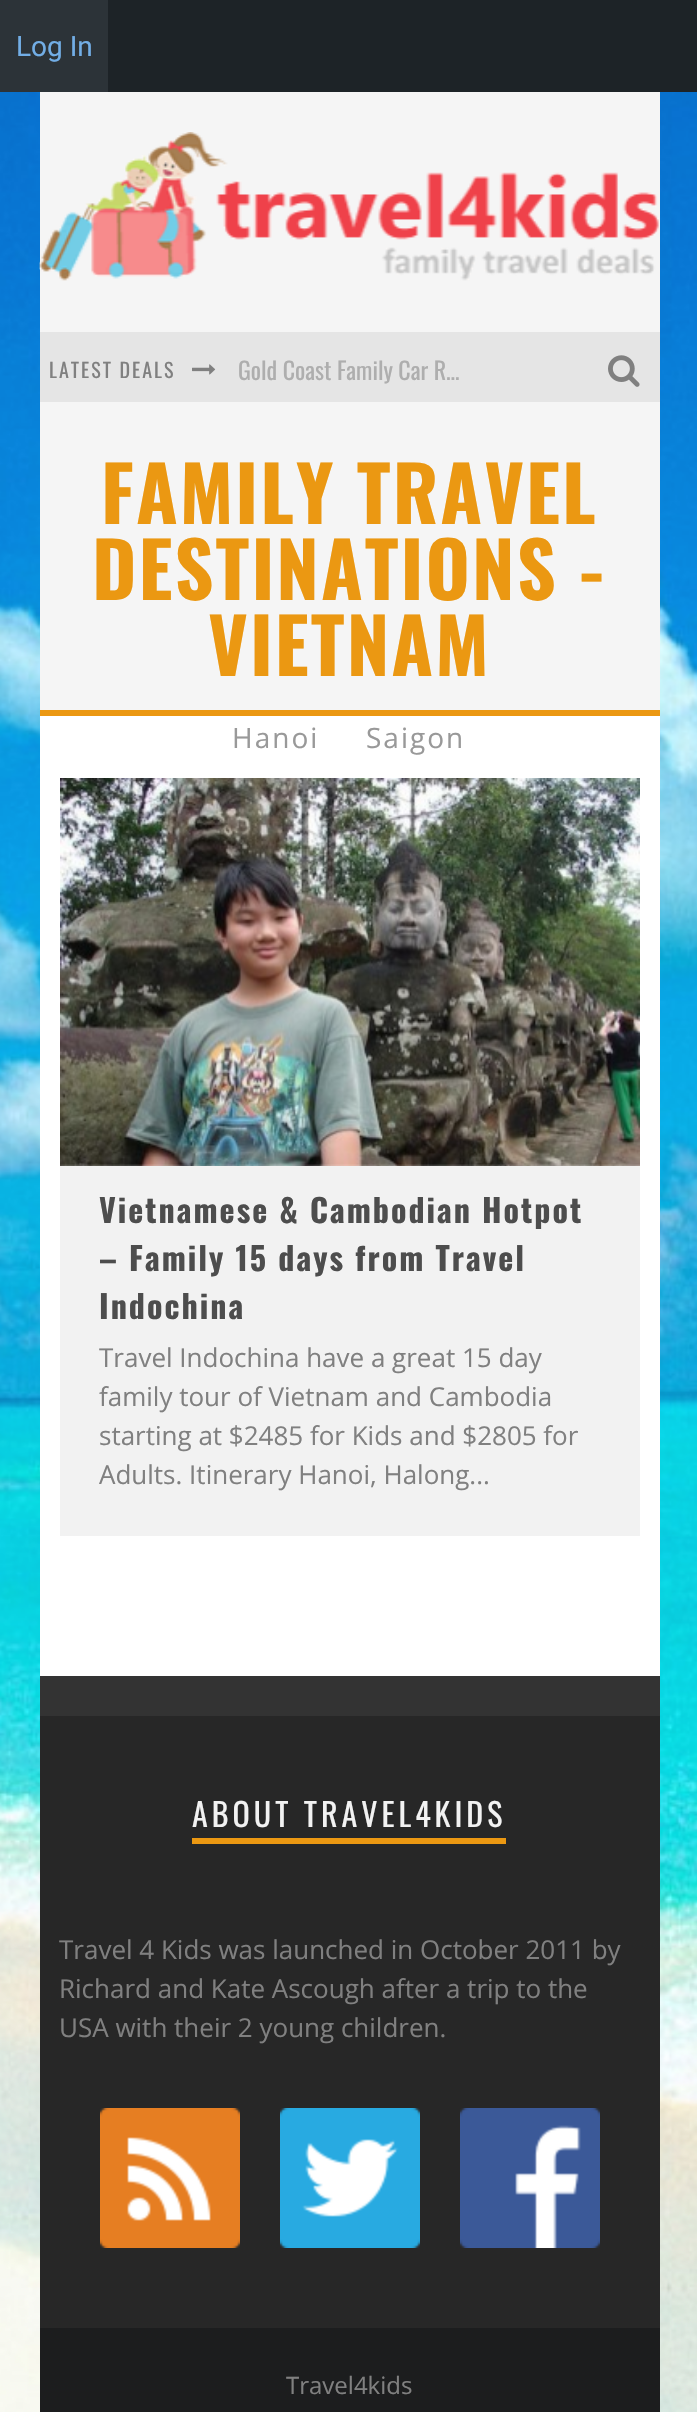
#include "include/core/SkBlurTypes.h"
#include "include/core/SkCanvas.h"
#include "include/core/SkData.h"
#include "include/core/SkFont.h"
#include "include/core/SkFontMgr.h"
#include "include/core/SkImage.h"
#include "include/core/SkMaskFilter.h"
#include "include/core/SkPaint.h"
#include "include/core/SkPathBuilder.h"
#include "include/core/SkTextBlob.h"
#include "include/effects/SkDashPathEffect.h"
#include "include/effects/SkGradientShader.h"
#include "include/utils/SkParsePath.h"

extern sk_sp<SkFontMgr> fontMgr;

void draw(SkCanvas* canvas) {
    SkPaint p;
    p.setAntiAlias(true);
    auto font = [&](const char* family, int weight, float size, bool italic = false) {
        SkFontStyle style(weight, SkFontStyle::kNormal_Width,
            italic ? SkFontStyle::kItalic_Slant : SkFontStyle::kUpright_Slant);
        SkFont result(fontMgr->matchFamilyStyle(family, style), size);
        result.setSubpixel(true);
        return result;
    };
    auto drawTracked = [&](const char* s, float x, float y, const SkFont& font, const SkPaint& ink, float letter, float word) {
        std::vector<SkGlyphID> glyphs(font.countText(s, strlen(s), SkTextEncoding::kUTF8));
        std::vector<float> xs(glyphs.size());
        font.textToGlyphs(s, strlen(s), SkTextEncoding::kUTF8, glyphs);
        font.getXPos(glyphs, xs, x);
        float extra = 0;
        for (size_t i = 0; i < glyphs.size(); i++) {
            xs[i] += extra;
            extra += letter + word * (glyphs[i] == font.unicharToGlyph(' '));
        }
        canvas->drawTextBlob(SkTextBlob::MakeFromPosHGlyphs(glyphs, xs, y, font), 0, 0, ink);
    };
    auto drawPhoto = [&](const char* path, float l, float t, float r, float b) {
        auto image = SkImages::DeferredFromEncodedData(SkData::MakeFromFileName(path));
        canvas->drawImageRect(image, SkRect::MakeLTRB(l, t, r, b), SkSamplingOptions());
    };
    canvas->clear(0xFFFFFFFF);
    p.setColor(0xFF1D2327);
    canvas->drawRect(SkRect::MakeLTRB(108, 0, 697, 92), p);
    p.setColor(0xFF2C3338);
    canvas->drawRect(SkRect::MakeLTRB(0, 0, 108, 92), p);
    auto font1 = font("Roboto", 400, 28);
    p.setColor(0xFF72AEE6);
    canvas->drawString("Log In", 16, 56, font1, p);
    drawPhoto("media/1.png", 0, 92, 697, 2412);
    p.setColor(0xFFF5F5F5);
    canvas->drawRect(SkRect::MakeLTRB(40, 92, 660, 332), p);
    drawPhoto("media/2.png", 39, 132, 659, 281);
    p.setColor(0xFFE5E5E5);
    canvas->drawRect(SkRect::MakeLTRB(40, 332, 660, 402), p);
    auto font2 = font("Oswald", 400, 20);
    p.setColor(0xFF808080);
    drawTracked("LATEST DEALS", 49, 378, font2, p, 2, 0);
    drawPhoto("media/3.png", 192, 364, 216, 375);
    auto font3 = font("Oswald", 400, 24);
    p.setColor(0xFFAEAEAE);
    canvas->drawString("Gold Coast Family Car R…", 238, 380, font3, p);
    drawPhoto("media/4.png", 608, 355, 640, 387);
    {
        const struct { float l, t, r, b; SkColor color; } items[] = {
            {40, 716, 660, 1676, 0xFFFFFFFF},
            {40, 402, 660, 710, 0xFFF5F5F5},
            {40, 710, 660, 716, 0xFFEB9812},
        };
        for (auto [l, t, r, b, color] : items) {
            p.setColor(color);
            canvas->drawRect(SkRect::MakeLTRB(l, t, r, b), p);
        }
    }
    auto font4 = font("Oswald", 700, 76);
    {
        const struct { const char* s; float x, y; } items[] = {
            {"FAMILY TRAVEL", 101, 524},
            {"DESTINATIONS -", 92, 600},
            {"VIETNAM", 208, 676},
        };
        for (auto [s, x, y] : items) {
            drawTracked(s, x, y, font4, p, 2, 0);
        }
    }
    auto font5 = font("Open Sans", 400, 28);
    p.setColor(0xFF999999);
    drawTracked("Hanoi", 232, 748, font5, p, 2, 0);
    drawTracked("Saigon", 366, 748, font5, p, 2, 0);
    p.setColor(0xFFF2F2F2);
    canvas->drawRect(SkRect::MakeLTRB(60, 1164, 640, 1536), p);
    drawPhoto("media/5.png", 60, 778, 640, 1166);
    auto font6 = font("Oswald", 700, 32);
    p.setColor(0xFF4D4D4D);
    {
        const struct { const char* s; float x, y; } items[] = {
            {"Vietnamese & Cambodian Hotpot", 99, 1223},
            {"– Family 15 days from Travel", 99, 1271},
            {"Indochina", 99, 1319},
        };
        for (auto [s, x, y] : items) {
            drawTracked(s, x, y, font6, p, 2, 0);
        }
    }
    auto font7 = font("Open Sans", 400, 26);
    p.setColor(0xFF808080);
    {
        const struct { const char* s; float x, y; } items[] = {
            {"Travel Indochina have a great 15 day", 99, 1367},
            {"family tour of Vietnam and Cambodia", 99, 1406},
            {"starting at $2485 for Kids and $2805 for", 99, 1445},
            {"Adults. Itinerary Hanoi, Halong...", 99, 1484},
        };
        for (auto [s, x, y] : items) {
            canvas->drawString(s, x, y, font7, p);
        }
    }
    p.setColor(0xFF272727);
    canvas->drawRect(SkRect::MakeLTRB(40, 1716, 660, 2328), p);
    p.setColor(0xFF333333);
    canvas->drawRect(SkRect::MakeLTRB(40, 1676, 660, 1716), p);
    auto font8 = font("Oswald", 400, 32);
    p.setColor(0xFFF2F2F2);
    drawTracked("ABOUT TRAVEL4KIDS", 192, 1827, font8, p, 4, 0);
    p.setColor(0xFFEB9812);
    canvas->drawRect(SkRect::MakeLTRB(192, 1838, 506, 1844), p);
    p.setColor(0xFF808080);
    {
        const struct { const char* s; float x, y; } items[] = {
            {"Travel 4 Kids was launched in October 2011 by", 59, 1959},
            {"Richard and Kate Ascough after a trip to the", 59, 1998},
            {"USA with their 2 young children.", 59, 2037},
        };
        for (auto [s, x, y] : items) {
            canvas->drawString(s, x, y, font7, p);
        }
    }
    drawPhoto("media/6.png", 100, 2108, 240, 2248);
    drawPhoto("media/7.png", 280, 2108, 420, 2248);
    drawPhoto("media/8.png", 460, 2108, 600, 2248);
    p.setColor(0xFF1C1D1E);
    canvas->drawRect(SkRect::MakeLTRB(40, 2328, 660, 2412), p);
    auto font9 = font("Open Sans", 400, 24);
    p.setColor(0xFF808080);
    canvas->drawString("Travel4kids", 286, 2394, font9, p);
}
